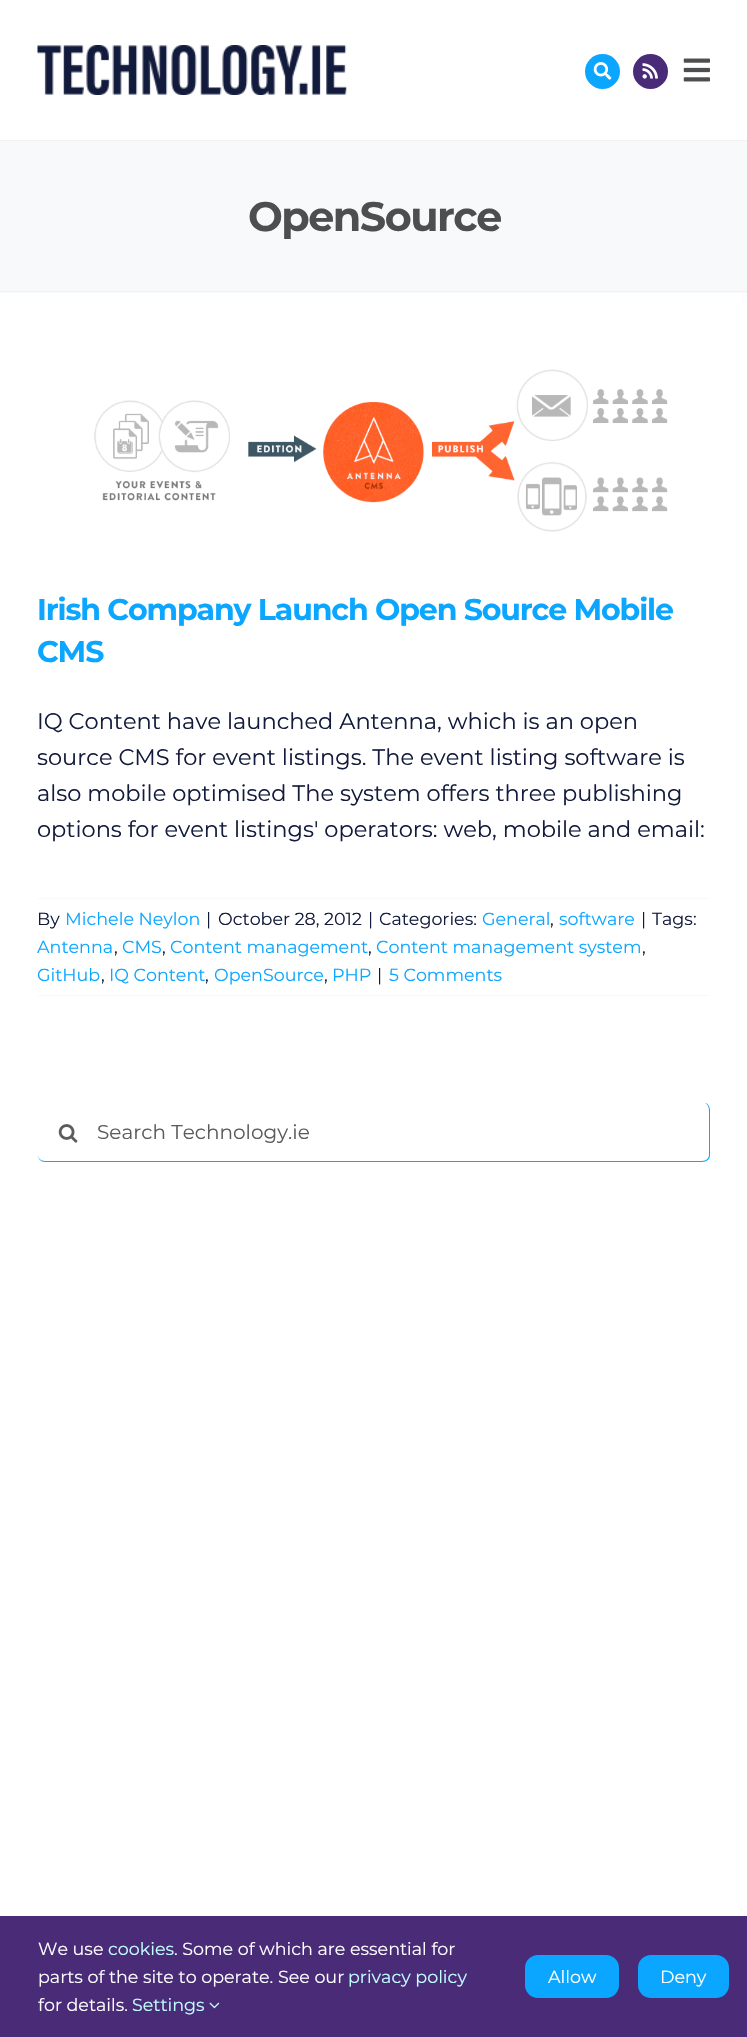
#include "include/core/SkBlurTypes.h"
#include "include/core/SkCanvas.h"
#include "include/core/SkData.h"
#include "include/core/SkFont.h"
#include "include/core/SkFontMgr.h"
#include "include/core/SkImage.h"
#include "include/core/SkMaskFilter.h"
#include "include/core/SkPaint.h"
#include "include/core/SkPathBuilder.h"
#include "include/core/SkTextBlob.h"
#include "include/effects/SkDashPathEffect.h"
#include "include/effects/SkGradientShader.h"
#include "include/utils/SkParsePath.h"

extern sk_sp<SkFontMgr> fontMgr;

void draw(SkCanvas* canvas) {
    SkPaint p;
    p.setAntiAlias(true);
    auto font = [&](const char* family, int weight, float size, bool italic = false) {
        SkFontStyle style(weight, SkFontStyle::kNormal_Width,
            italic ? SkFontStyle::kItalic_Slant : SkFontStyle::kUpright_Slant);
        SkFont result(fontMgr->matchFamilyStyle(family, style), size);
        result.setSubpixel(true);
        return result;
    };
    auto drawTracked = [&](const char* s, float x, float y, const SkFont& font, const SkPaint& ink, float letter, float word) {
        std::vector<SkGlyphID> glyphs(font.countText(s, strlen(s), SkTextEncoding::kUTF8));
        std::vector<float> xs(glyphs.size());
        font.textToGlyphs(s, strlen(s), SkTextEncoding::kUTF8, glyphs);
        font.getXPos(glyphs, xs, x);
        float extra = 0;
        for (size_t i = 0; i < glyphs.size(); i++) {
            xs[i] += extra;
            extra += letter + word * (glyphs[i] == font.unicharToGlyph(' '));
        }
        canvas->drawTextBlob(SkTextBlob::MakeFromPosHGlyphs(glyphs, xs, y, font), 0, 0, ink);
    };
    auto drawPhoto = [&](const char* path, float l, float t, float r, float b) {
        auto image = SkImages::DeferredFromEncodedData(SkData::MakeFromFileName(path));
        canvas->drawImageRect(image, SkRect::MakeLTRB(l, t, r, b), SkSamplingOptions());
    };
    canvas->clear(0xFFFFFFFF);
    drawPhoto("media/1.png", 37, 45, 347, 95);
    p.setColor(0xFF0BA6FF);
    canvas->drawCircle(602.5f, 71.5f, 17.5f, p);
    drawPhoto("media/2.png", 593, 62, 612, 80);
    p.setColor(0xFF4A2B78);
    canvas->drawCircle(650.5f, 71.5f, 17.5f, p);
    drawPhoto("media/3.png", 642, 63, 658, 79);
    drawPhoto("media/4.png", 683, 58, 710, 82);
    {
        const struct { float l, t, r, b; SkColor color; } items[] = {
            {0, 141, 747, 293, 0xFFF8F9FA},
            {0, 140, 747, 141, 0xFFF1F2F4},
            {0, 291, 747, 292, 0xFFF1F2F4},
        };
        for (auto [l, t, r, b, color] : items) {
            p.setColor(color);
            canvas->drawRect(SkRect::MakeLTRB(l, t, r, b), p);
        }
    }
    auto font1 = font("Montserrat", 700, 41.25f);
    p.setColor(0xFF4D4E50);
    drawTracked("OpenSource", 248, 231, font1, p, -1.5f, 0);
    drawPhoto("media/5.png", 94, 369, 668, 532);
    auto font2 = font("Montserrat", 700, 30);
    p.setColor(0xFF0BA6FF);
    drawTracked("Irish Company Launch Open Source Mobile", 37, 620, font2, p, -1.1f, 0);
    drawTracked("CMS", 37, 662, font2, p, -1.1f, 0);
    auto font3 = font("Montserrat", 400, 22.5f);
    p.setColor(0xFF121B3C);
    {
        const struct { const char* s; float x, y; } items[] = {
            {"IQ Content have launched Antenna, which is an open", 37, 729},
            {"source CMS for event listings. The event listing software is", 37, 765},
            {"also mobile optimised The system offers three publishing", 37, 801},
            {"options for event listings' operators: web, mobile and email:", 37, 837},
        };
        for (auto [s, x, y] : items) {
            canvas->drawString(s, x, y, font3, p);
        }
    }
    p.setColor(0xFFF8F8F9);
    canvas->drawRect(SkRect::MakeLTRB(38, 898, 710, 899), p);
    canvas->drawRect(SkRect::MakeLTRB(38, 995, 710, 996), p);
    auto font4 = font("Montserrat", 400, 17.5f);
    p.setColor(0xFF121B3C);
    canvas->drawString("By", 37, 925, font4, p);
    p.setColor(0xFF0BA6FF);
    canvas->drawString("Michele Neylon", 65, 925, font4, p);
    p.setColor(0xFF121B3C);
    {
        const struct { const char* s; float x, y; } items[] = {
            {"|", 206, 925},
            {"October 28, 2012", 218, 925},
            {"|", 368, 925},
            {"Categories:", 379, 925},
        };
        for (auto [s, x, y] : items) {
            canvas->drawString(s, x, y, font4, p);
        }
    }
    p.setColor(0xFF0BA6FF);
    canvas->drawString("General", 482, 925, font4, p);
    p.setColor(0xFF121B3C);
    canvas->drawString(",", 550, 925, font4, p);
    p.setColor(0xFF0BA6FF);
    canvas->drawString("software", 559, 925, font4, p);
    p.setColor(0xFF121B3C);
    canvas->drawString("|", 641, 925, font4, p);
    canvas->drawString("Tags:", 652, 925, font4, p);
    p.setColor(0xFF0BA6FF);
    canvas->drawString("Antenna", 37, 953, font4, p);
    p.setColor(0xFF121B3C);
    canvas->drawString(",", 114, 953, font4, p);
    p.setColor(0xFF0BA6FF);
    canvas->drawString("CMS", 122, 953, font4, p);
    p.setColor(0xFF121B3C);
    canvas->drawString(",", 162, 953, font4, p);
    p.setColor(0xFF0BA6FF);
    canvas->drawString("Content management", 170, 953, font4, p);
    p.setColor(0xFF121B3C);
    canvas->drawString(",", 368, 953, font4, p);
    p.setColor(0xFF0BA6FF);
    canvas->drawString("Content management system", 376, 953, font4, p);
    p.setColor(0xFF121B3C);
    canvas->drawString(",", 642, 953, font4, p);
    p.setColor(0xFF0BA6FF);
    canvas->drawString("GitHub", 37, 981, font4, p);
    p.setColor(0xFF121B3C);
    canvas->drawString(",", 101, 981, font4, p);
    p.setColor(0xFF0BA6FF);
    canvas->drawString("IQ Content", 109, 981, font4, p);
    p.setColor(0xFF121B3C);
    canvas->drawString(",", 205, 981, font4, p);
    p.setColor(0xFF0BA6FF);
    canvas->drawString("OpenSource", 214, 981, font4, p);
    p.setColor(0xFF121B3C);
    canvas->drawString(",", 324, 981, font4, p);
    p.setColor(0xFF0BA6FF);
    canvas->drawString("PHP", 332, 981, font4, p);
    p.setColor(0xFF121B3C);
    canvas->drawString("|", 377, 981, font4, p);
    p.setColor(0xFF0BA6FF);
    canvas->drawString("5 Comments", 389, 981, font4, p);
    canvas->save();
    canvas->clipRect(SkRect::MakeLTRB(38, 1103, 710, 1163));
    canvas->drawPath(SkPathBuilder(SkPathFillType::kEvenOdd).moveTo(45, 1102).lineTo(702, 1102).cubicTo(707, 1102, 710, 1106, 710, 1110).lineTo(710, 1155).cubicTo(710, 1159, 707, 1162, 702, 1162).lineTo(45, 1162).cubicTo(41, 1162, 38, 1159, 38, 1155).lineTo(38, 1110).cubicTo(38, 1106, 41, 1102, 45, 1102).close().moveTo(45, 1102).lineTo(702, 1102).cubicTo(706, 1102, 709, 1106, 709, 1110).lineTo(709, 1155).cubicTo(709, 1158, 706, 1161, 702, 1161).lineTo(45, 1161).cubicTo(41, 1161, 38, 1158, 38, 1155).lineTo(38, 1110).cubicTo(38, 1106, 41, 1102, 45, 1102).close().detach(), p);
    canvas->restore();
    drawPhoto("media/6.png", 58, 1124, 78, 1143);
    auto font5 = font("Montserrat", 400, 20);
    p.setColor(0xFF5A5C5E);
    canvas->drawString("Search Technology.ie", 97, 1139, font5, p);
    p.setColor(0xFF4A2B78);
    canvas->drawRect(SkRect::MakeLTRB(0, 1916, 747, 2037), p);
    p.setColor(0xFFFFFFFF);
    canvas->drawString("We use", 38, 1955, font4, p);
    p.setColor(0xFFC2FFFF);
    canvas->drawString("cookies", 108, 1955, font4, p);
    p.setColor(0xFFFFFFFF);
    canvas->drawString(". Some of which are essential for", 174, 1955, font4, p);
    canvas->drawString("parts of the site to operate. See our", 38, 1983, font4, p);
    p.setColor(0xFFC2FFFF);
    canvas->drawString("privacy policy", 348, 1983, font4, p);
    p.setColor(0xFFFFFFFF);
    canvas->drawString("for details.", 38, 2011, font4, p);
    p.setColor(0xFFC2FFFF);
    canvas->drawString("Settings", 132, 2011, font4, p);
    drawPhoto("media/7.png", 209, 2002, 220, 2009);
    p.setColor(0xFF0BA6FF);
    canvas->drawRoundRect(SkRect::MakeLTRB(525, 1955, 619, 1998), 13, 13, p);
    p.setColor(0xFFFFFFFF);
    canvas->drawString("Allow", 548, 1983, font4, p);
    p.setColor(0xFF0BA6FF);
    canvas->drawRoundRect(SkRect::MakeLTRB(638, 1955, 729, 1998), 13, 13, p);
    p.setColor(0xFFFFFFFF);
    canvas->drawString("Deny", 660, 1983, font4, p);
}
